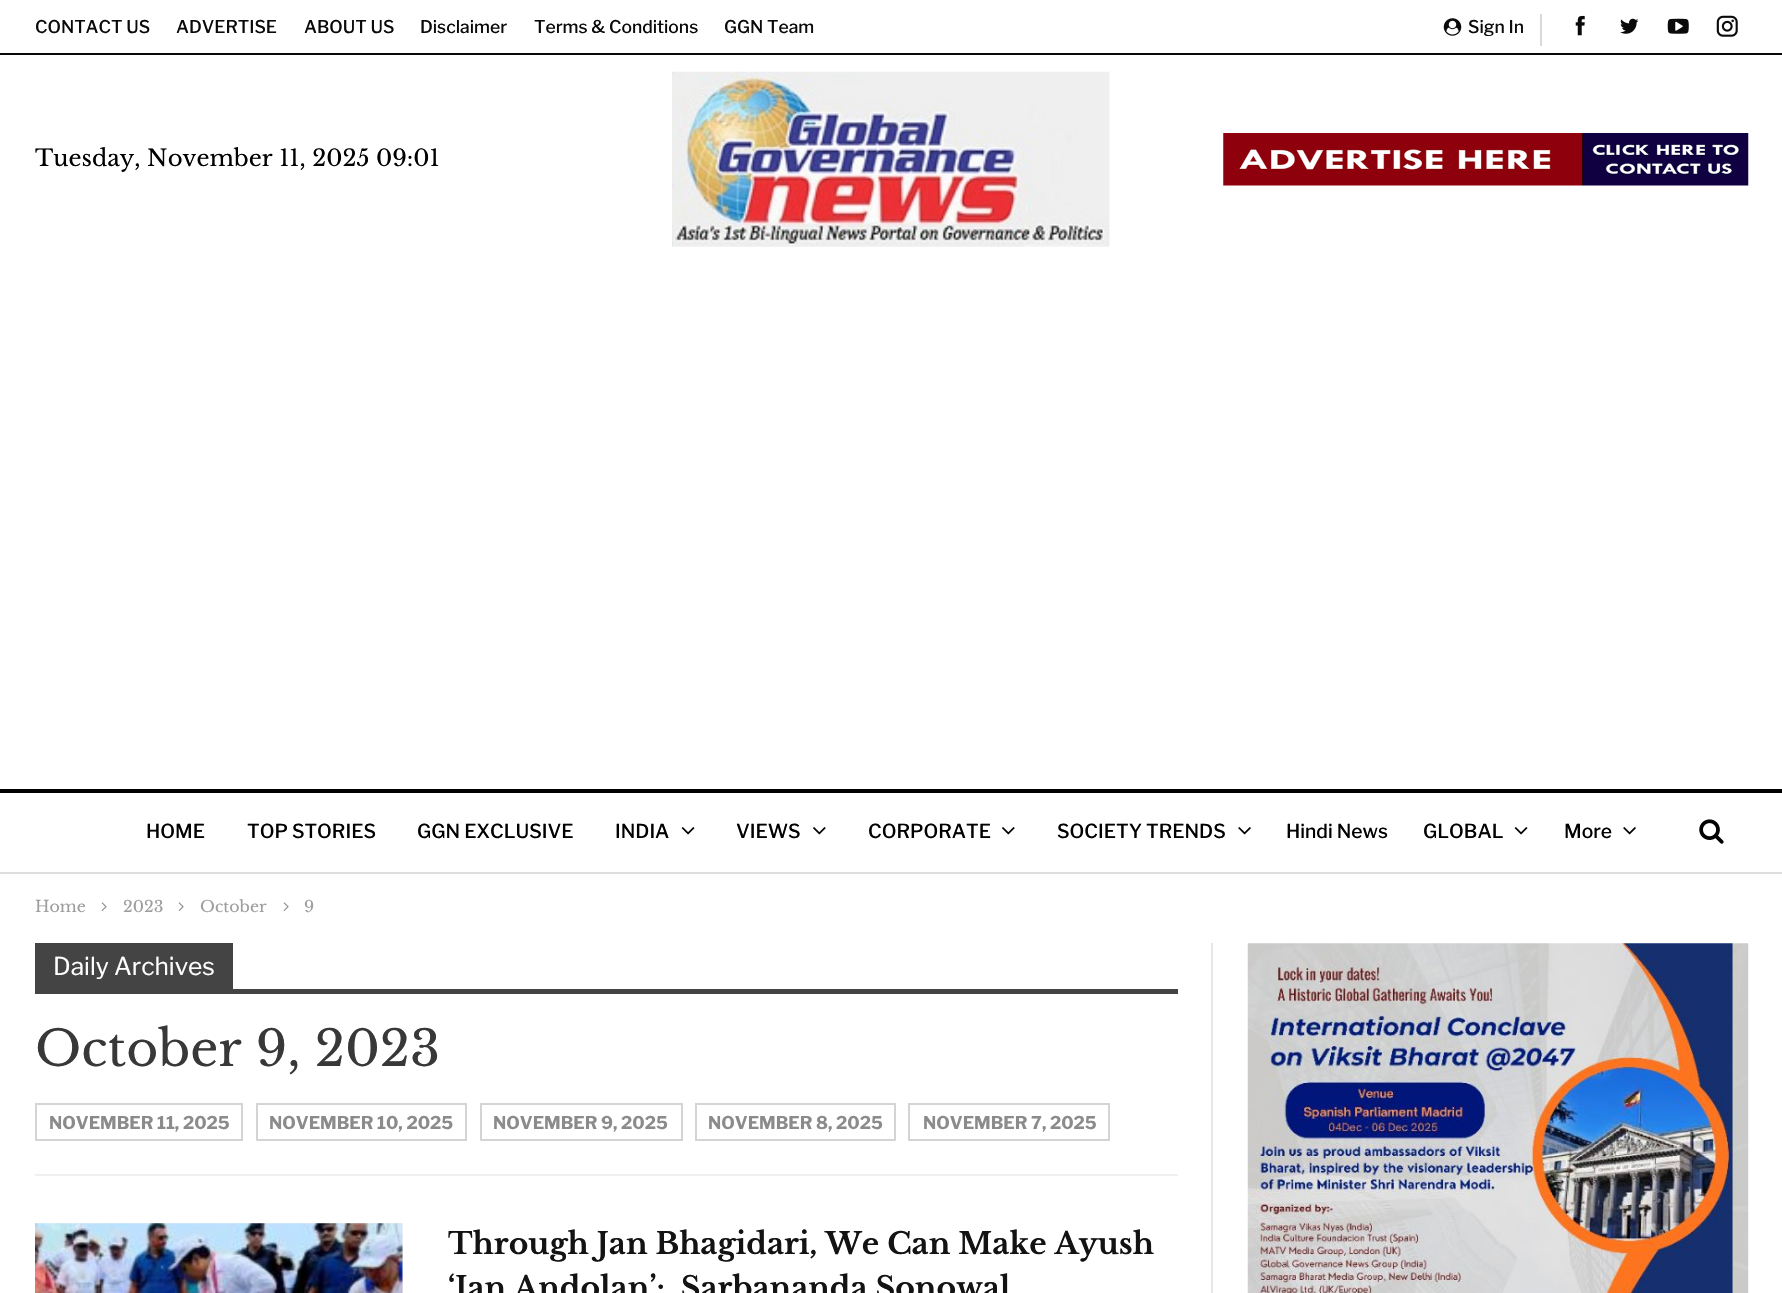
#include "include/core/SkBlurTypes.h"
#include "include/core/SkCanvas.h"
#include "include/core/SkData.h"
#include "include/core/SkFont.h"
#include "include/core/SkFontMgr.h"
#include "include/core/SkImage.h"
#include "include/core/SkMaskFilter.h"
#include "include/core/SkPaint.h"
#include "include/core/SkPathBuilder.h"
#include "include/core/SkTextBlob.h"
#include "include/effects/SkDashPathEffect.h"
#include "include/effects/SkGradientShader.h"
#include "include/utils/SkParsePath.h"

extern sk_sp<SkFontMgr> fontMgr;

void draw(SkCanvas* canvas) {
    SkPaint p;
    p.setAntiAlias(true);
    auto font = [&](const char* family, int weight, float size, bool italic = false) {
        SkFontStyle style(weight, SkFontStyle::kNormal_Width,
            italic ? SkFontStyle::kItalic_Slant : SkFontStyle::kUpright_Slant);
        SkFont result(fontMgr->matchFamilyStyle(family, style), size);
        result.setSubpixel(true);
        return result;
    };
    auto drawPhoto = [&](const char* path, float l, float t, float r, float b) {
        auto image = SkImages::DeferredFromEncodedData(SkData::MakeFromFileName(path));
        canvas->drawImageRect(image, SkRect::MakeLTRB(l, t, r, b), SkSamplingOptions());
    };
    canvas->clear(0xFFFFFFFF);
    p.setColor(0xFF090909);
    canvas->drawRect(SkRect::MakeLTRB(0, 53, 1782, 55), p);
    auto font1 = font("Libre Franklin", 500, 17.5f);
    p.setColor(0xFF0A0A0A);
    {
        const struct { const char* s; float x, y; } items[] = {
            {"CONTACT US", 35, 33},
            {"ADVERTISE", 176, 33},
            {"ABOUT US", 304, 33},
            {"Disclaimer", 420, 33},
            {"Terms & Conditions", 534, 33},
            {"GGN Team", 724, 33},
        };
        for (auto [s, x, y] : items) {
            canvas->drawString(s, x, y, font1, p);
        }
    }
    drawPhoto("media/1.png", 1443, 18, 1462, 36);
    canvas->drawString("Sign In", 1468, 33, font1, p);
    p.setColor(0xFFD9D9D9);
    canvas->drawRect(SkRect::MakeLTRB(1540, 14, 1542, 46), p);
    drawPhoto("media/2.png", 1575, 15, 1585, 36);
    drawPhoto("media/3.png", 1620, 18, 1639, 34);
    drawPhoto("media/4.png", 1667, 18, 1689, 34);
    drawPhoto("media/5.png", 1716, 15, 1738, 37);
    auto font2 = font("Libre Baskerville", 400, 22.75f);
    p.setColor(0xFF000000);
    canvas->drawString("Tuesday, November 11, 2025 09:01", 35, 166, font2, p);
    drawPhoto("media/6.png", 672, 71, 1110, 247);
    drawPhoto("media/7.png", 1223, 133, 1749, 186);
    canvas->drawRect(SkRect::MakeLTRB(0, 789, 1782, 793), p);
    p.setColor(0xFFDDDDDD);
    canvas->drawRect(SkRect::MakeLTRB(0, 872, 1782, 874), p);
    auto font3 = font("Libre Franklin", 500, 19.25f);
    p.setColor(0xFF000000);
    {
        const struct { const char* s; float x, y; } items[] = {
            {"HOME", 146, 838},
            {"TOP STORIES", 247, 838},
            {"GGN EXCLUSIVE", 417, 838},
            {"INDIA", 615, 838},
        };
        for (auto [s, x, y] : items) {
            canvas->drawString(s, x, y, font3, p);
        }
    }
    drawPhoto("media/8.png", 681, 827, 695, 835);
    canvas->drawString("VIEWS", 736, 838, font3, p);
    drawPhoto("media/9.png", 813, 827, 826, 835);
    canvas->drawString("CORPORATE", 868, 838, font3, p);
    drawPhoto("media/9.png", 1002, 827, 1015, 835);
    canvas->drawString("SOCIETY TRENDS", 1057, 838, font3, p);
    drawPhoto("media/10.png", 1238, 827, 1251, 835);
    canvas->drawString("Hindi News", 1286, 838, font3, p);
    canvas->drawString("GLOBAL", 1423, 838, font3, p);
    drawPhoto("media/8.png", 1514, 827, 1528, 835);
    canvas->drawString("More", 1564, 838, font3, p);
    drawPhoto("media/10.png", 1623, 827, 1636, 835);
    drawPhoto("media/11.png", 1699, 819, 1724, 844);
    auto font4 = font("Libre Baskerville", 400, 15.75f);
    p.setColor(0xFF9E9E9E);
    canvas->drawString("Home", 35, 912, font4, p);
    drawPhoto("media/12.png", 101, 902, 107, 911);
    canvas->drawString("2023", 123, 912, font4, p);
    drawPhoto("media/12.png", 178, 902, 184, 911);
    canvas->drawString("October", 200, 912, font4, p);
    drawPhoto("media/12.png", 283, 902, 289, 911);
    canvas->drawString("9", 304, 912, font4, p);
    p.setColor(0xFFF0F0F0);
    canvas->drawRect(SkRect::MakeLTRB(35, 1174, 1178, 1176), p);
    p.setColor(0xFF444444);
    canvas->drawRect(SkRect::MakeLTRB(35, 943, 233, 989), p);
    auto font5 = font("Libre Franklin", 400, 24.5f);
    p.setColor(0xFFFFFFFF);
    canvas->drawString("Daily Archives", 53, 975, font5, p);
    p.setColor(0xFF444444);
    canvas->drawRect(SkRect::MakeLTRB(35, 989, 1178, 994), p);
    auto font6 = font("Libre Baskerville", 400, 49);
    p.setColor(0xFF383838);
    canvas->drawString("October 9, 2023", 35, 1066, font6, p);
    p.setStyle(SkPaint::kStroke_Style);
    p.setStrokeWidth(2);
    p.setColor(0xFFD4D4D4);
    canvas->drawRect(SkRect::MakeLTRB(36, 1104, 242, 1140), p);
    auto font7 = font("Libre Franklin", 700, 17.5f);
    p.setStyle(SkPaint::kFill_Style);
    p.setColor(0xFF8B8B8B);
    canvas->drawString("NOVEMBER 11, 2025", 49, 1129, font7, p);
    p.setStyle(SkPaint::kStroke_Style);
    p.setColor(0xFFD4D4D4);
    canvas->drawRect(SkRect::MakeLTRB(257, 1104, 466, 1140), p);
    p.setStyle(SkPaint::kFill_Style);
    p.setColor(0xFF8B8B8B);
    canvas->drawString("NOVEMBER 10, 2025", 269, 1129, font7, p);
    p.setStyle(SkPaint::kStroke_Style);
    p.setColor(0xFFD4D4D4);
    canvas->drawRect(SkRect::MakeLTRB(481, 1104, 682, 1140), p);
    p.setStyle(SkPaint::kFill_Style);
    p.setColor(0xFF8B8B8B);
    canvas->drawString("NOVEMBER 9, 2025", 493, 1129, font7, p);
    p.setStyle(SkPaint::kStroke_Style);
    p.setColor(0xFFD4D4D4);
    canvas->drawRect(SkRect::MakeLTRB(696, 1104, 895, 1140), p);
    p.setStyle(SkPaint::kFill_Style);
    p.setColor(0xFF8B8B8B);
    canvas->drawString("NOVEMBER 8, 2025", 708, 1129, font7, p);
    p.setStyle(SkPaint::kStroke_Style);
    p.setColor(0xFFD4D4D4);
    canvas->drawRect(SkRect::MakeLTRB(909, 1104, 1109, 1140), p);
    p.setStyle(SkPaint::kFill_Style);
    p.setColor(0xFF8B8B8B);
    canvas->drawString("NOVEMBER 7, 2025", 923, 1129, font7, p);
    p.setColor(0xFFE6E6E6);
    canvas->drawRect(SkRect::MakeLTRB(1211, 943, 1213, 1293), p);
    p.setColor(0xFFF5F5F5);
    canvas->drawRect(SkRect::MakeLTRB(35, 1223, 403, 1293), p);
    drawPhoto("media/13.png", 35, 1223, 403, 1293);
    auto font8 = font("Libre Baskerville", 700, 29.75f);
    p.setColor(0xFF131313);
    canvas->drawString("Through Jan Bhagidari, We Can Make Ayush", 448, 1254, font8, p);
    canvas->drawString("‘Jan Andolan’:  Sarbananda Sonowal", 448, 1298, font8, p);
    drawPhoto("media/14.png", 1247, 943, 1749, 1293);
}
